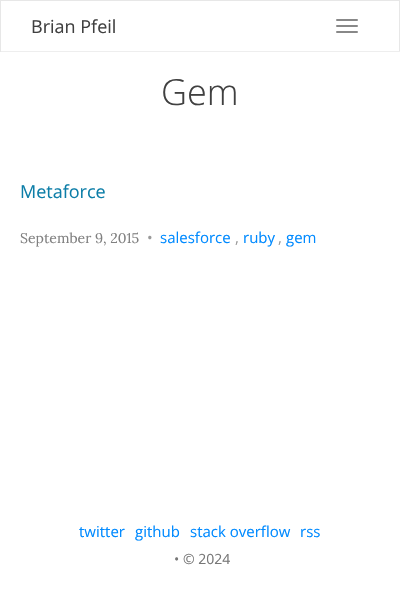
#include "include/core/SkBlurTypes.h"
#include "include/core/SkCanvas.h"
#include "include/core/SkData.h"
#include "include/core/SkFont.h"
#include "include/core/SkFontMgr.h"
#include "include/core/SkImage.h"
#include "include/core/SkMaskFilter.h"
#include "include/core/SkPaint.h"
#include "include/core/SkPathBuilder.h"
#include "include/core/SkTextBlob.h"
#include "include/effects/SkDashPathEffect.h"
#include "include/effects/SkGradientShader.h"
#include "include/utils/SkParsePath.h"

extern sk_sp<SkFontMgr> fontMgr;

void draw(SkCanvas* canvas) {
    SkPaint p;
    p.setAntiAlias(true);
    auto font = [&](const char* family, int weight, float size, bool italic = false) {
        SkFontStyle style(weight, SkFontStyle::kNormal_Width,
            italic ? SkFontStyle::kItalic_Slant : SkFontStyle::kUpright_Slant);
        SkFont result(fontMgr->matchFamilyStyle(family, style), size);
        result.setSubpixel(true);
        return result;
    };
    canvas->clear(0xFFFFFFFF);
    {
        const struct { float l, t, r, b; SkColor color; } items[] = {
            {0, 0, 400, 1, 0xFFE7E7E7},
            {399, 0, 400, 52, 0xFFE7E7E7},
            {0, 51, 400, 52, 0xFFEEEEEE},
            {0, 0, 1, 52, 0xFFE7E7E7},
        };
        for (auto [l, t, r, b, color] : items) {
            p.setColor(color);
            canvas->drawRect(SkRect::MakeLTRB(l, t, r, b), p);
        }
    }
    auto font1 = font("Open Sans", 400, 18);
    p.setColor(0xFF404040);
    canvas->drawString("Brian Pfeil", 31, 33, font1, p);
    p.setColor(0xFF888888);
    canvas->drawRoundRect(SkRect::MakeLTRB(336, 19, 358, 21), 1, 1, p);
    canvas->drawRoundRect(SkRect::MakeLTRB(336, 25, 358, 27), 1, 1, p);
    canvas->drawRoundRect(SkRect::MakeLTRB(336, 31, 358, 33), 1, 1, p);
    auto font2 = font("Open Sans", 300, 36);
    p.setColor(0xFF404040);
    canvas->drawString("Gem", 161, 105, font2, p);
    p.setColor(0xFF0D7EA8);
    canvas->drawString("Metaforce", 20, 198, font1, p);
    auto font3 = font("Lora", 400, 14);
    p.setColor(0xFF808080);
    canvas->drawString("September 9, 2015", 20, 243, font3, p);
    auto font4 = font("Open Sans", 400, 15);
    p.setColor(0xFF999999);
    canvas->drawString("•", 147, 243, font4, p);
    p.setColor(0xFF008AFF);
    {
        const struct { const char* s; float x, y; } items[] = {
            {"salesforce", 160, 243},
            {"ruby", 243, 243},
            {"gem", 286, 243},
        };
        for (auto [s, x, y] : items) {
            canvas->drawString(s, x, y, font4, p);
        }
    }
    p.setColor(0xFF999999);
    canvas->drawString(",", 235, 243, font4, p);
    canvas->drawString(",", 278, 243, font4, p);
    p.setColor(0xFF008AFF);
    {
        const struct { const char* s; float x, y; } items[] = {
            {"twitter", 79, 537},
            {"github", 135, 537},
            {"stack overflow", 190, 537},
            {"rss", 300, 537},
        };
        for (auto [s, x, y] : items) {
            canvas->drawString(s, x, y, font4, p);
        }
    }
    auto font5 = font("Open Sans", 400, 14);
    p.setColor(0xFF777777);
    canvas->drawString("• © 2024", 174, 564, font5, p);
}
